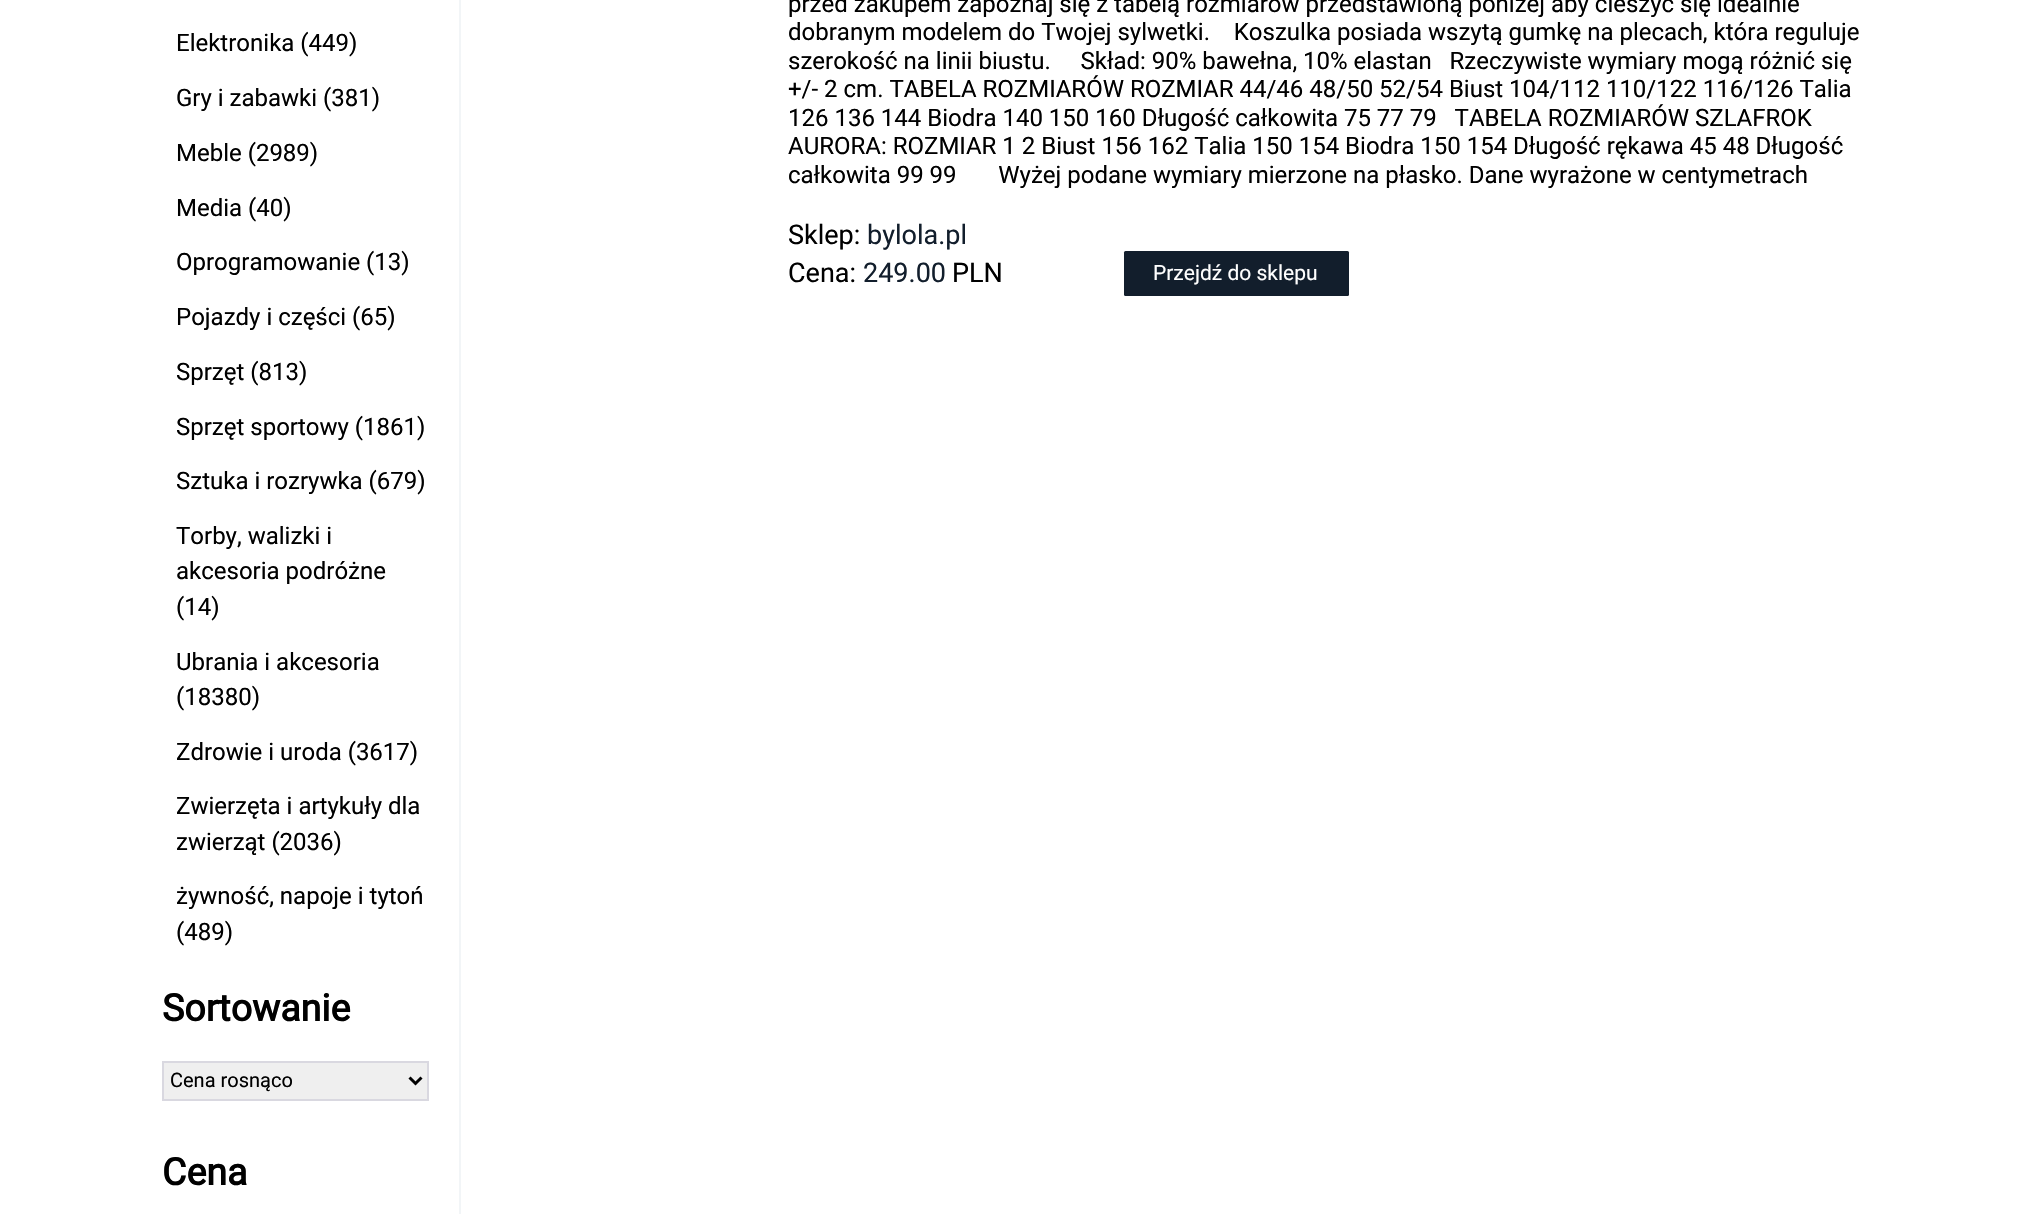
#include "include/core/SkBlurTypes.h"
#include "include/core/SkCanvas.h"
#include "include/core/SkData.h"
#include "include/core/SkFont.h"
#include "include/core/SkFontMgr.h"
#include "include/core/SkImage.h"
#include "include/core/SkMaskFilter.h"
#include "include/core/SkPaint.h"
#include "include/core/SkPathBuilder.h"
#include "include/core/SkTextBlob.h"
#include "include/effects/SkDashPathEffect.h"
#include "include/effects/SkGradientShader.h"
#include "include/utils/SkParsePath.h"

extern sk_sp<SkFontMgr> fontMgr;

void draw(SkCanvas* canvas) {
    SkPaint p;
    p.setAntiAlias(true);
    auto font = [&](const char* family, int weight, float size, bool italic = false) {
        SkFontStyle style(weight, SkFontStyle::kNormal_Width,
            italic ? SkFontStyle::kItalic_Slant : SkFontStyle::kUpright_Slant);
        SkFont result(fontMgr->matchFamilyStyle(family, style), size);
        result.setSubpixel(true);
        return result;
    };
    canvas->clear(0xFFFFFFFF);
    p.setColor(0xFFF2F5F7);
    canvas->drawRect(SkRect::MakeLTRB(459, 0, 461, 1214), p);
    auto font1 = font("Roboto", 400, 24);
    p.setColor(0xFF000000);
    {
        const struct { const char* s; float x, y; } items[] = {
            {"Elektronika (449)", 176, 51},
            {"Gry i zabawki (381)", 176, 106},
            {"Meble (2989)", 176, 161},
            {"Media (40)", 176, 216},
            {"Oprogramowanie (13)", 176, 270},
            {"Pojazdy i części (65)", 176, 325},
            {"Sprzęt (813)", 176, 380},
            {"Sprzęt sportowy (1861)", 176, 435},
            {"Sztuka i rozrywka (679)", 176, 489},
            {"Torby, walizki i", 176, 544},
            {"akcesoria podróżne", 176, 579},
            {"(14)", 176, 615},
            {"Ubrania i akcesoria", 176, 670},
            {"(18380)", 176, 705},
            {"Zdrowie i uroda (3617)", 176, 760},
            {"Zwierzęta i artykuły dla", 176, 814},
            {"zwierząt (2036)", 176, 850},
            {"żywność, napoje i tytoń", 176, 904},
            {"(489)", 176, 940},
        };
        for (auto [s, x, y] : items) {
            canvas->drawString(s, x, y, font1, p);
        }
    }
    auto font2 = font("Roboto", 700, 37.5f);
    canvas->drawString("Sortowanie", 162, 1021, font2, p);
    p.setColor(0xFFEFEFEF);
    canvas->drawRect(SkRect::MakeLTRB(163, 1062, 428, 1100), p);
    p.setStyle(SkPaint::kStroke_Style);
    p.setStrokeWidth(2);
    p.setColor(0xFFD9D8E0);
    canvas->drawRect(SkRect::MakeLTRB(163, 1062, 428, 1100), p);
    p.setStrokeWidth(3);
    p.setColor(0xFF000000);
    canvas->drawPath(SkPathBuilder().moveTo(409.5f, 1077.5f).lineTo(415.5f, 1083.5f).lineTo(421.5f, 1077.5f).detach(), p);
    auto font3 = font("Roboto", 400, 20);
    p.setStyle(SkPaint::kFill_Style);
    canvas->drawString("Cena rosnąco", 170, 1087, font3, p);
    canvas->drawString("Cena", 162, 1185, font2, p);
    {
        const struct { const char* s; float x, y; } items[] = {
            {"przed zakupem zapoznaj się z tabelą rozmiarów przedstawioną poniżej aby cieszyć się idealnie", 788, 12},
            {"dobranym modelem do Twojej sylwetki.    Koszulka posiada wszytą gumkę na plecach, która reguluje", 788, 40},
            {"szerokość na linii biustu.     Skład: 90% bawełna, 10% elastan   Rzeczywiste wymiary mogą różnić się", 788, 69},
            {"+/- 2 cm. TABELA ROZMIARÓW ROZMIAR 44/46 48/50 52/54 Biust 104/112 110/122 116/126 Talia", 788, 97},
            {"126 136 144 Biodra 140 150 160 Długość całkowita 75 77 79   TABELA ROZMIARÓW SZLAFROK", 788, 126},
            {"AURORA: ROZMIAR 1 2 Biust 156 162 Talia 150 154 Biodra 150 154 Długość rękawa 45 48 Długość", 788, 154},
            {"całkowita 99 99       Wyżej podane wymiary mierzone na płasko. Dane wyrażone w centymetrach", 788, 183},
        };
        for (auto [s, x, y] : items) {
            canvas->drawString(s, x, y, font1, p);
        }
    }
    auto font4 = font("Roboto", 400, 27);
    canvas->drawString("Sklep:", 788, 244, font4, p);
    p.setColor(0xFF121E2C);
    canvas->drawString("bylola.pl", 867, 244, font4, p);
    p.setColor(0xFF000000);
    canvas->drawString("Cena:", 788, 282, font4, p);
    p.setColor(0xFF121E2C);
    canvas->drawString("249.00", 863, 282, font4, p);
    p.setColor(0xFF000000);
    canvas->drawString("PLN", 952, 282, font4, p);
    p.setColor(0xFF121E2C);
    canvas->drawRoundRect(SkRect::MakeLTRB(1124, 251, 1349, 296), 1.5f, 1.5f, p);
    auto font5 = font("Roboto", 400, 21);
    p.setColor(0xFFFFFFFF);
    canvas->drawString("Przejdź do sklepu", 1153, 280, font5, p);
}
